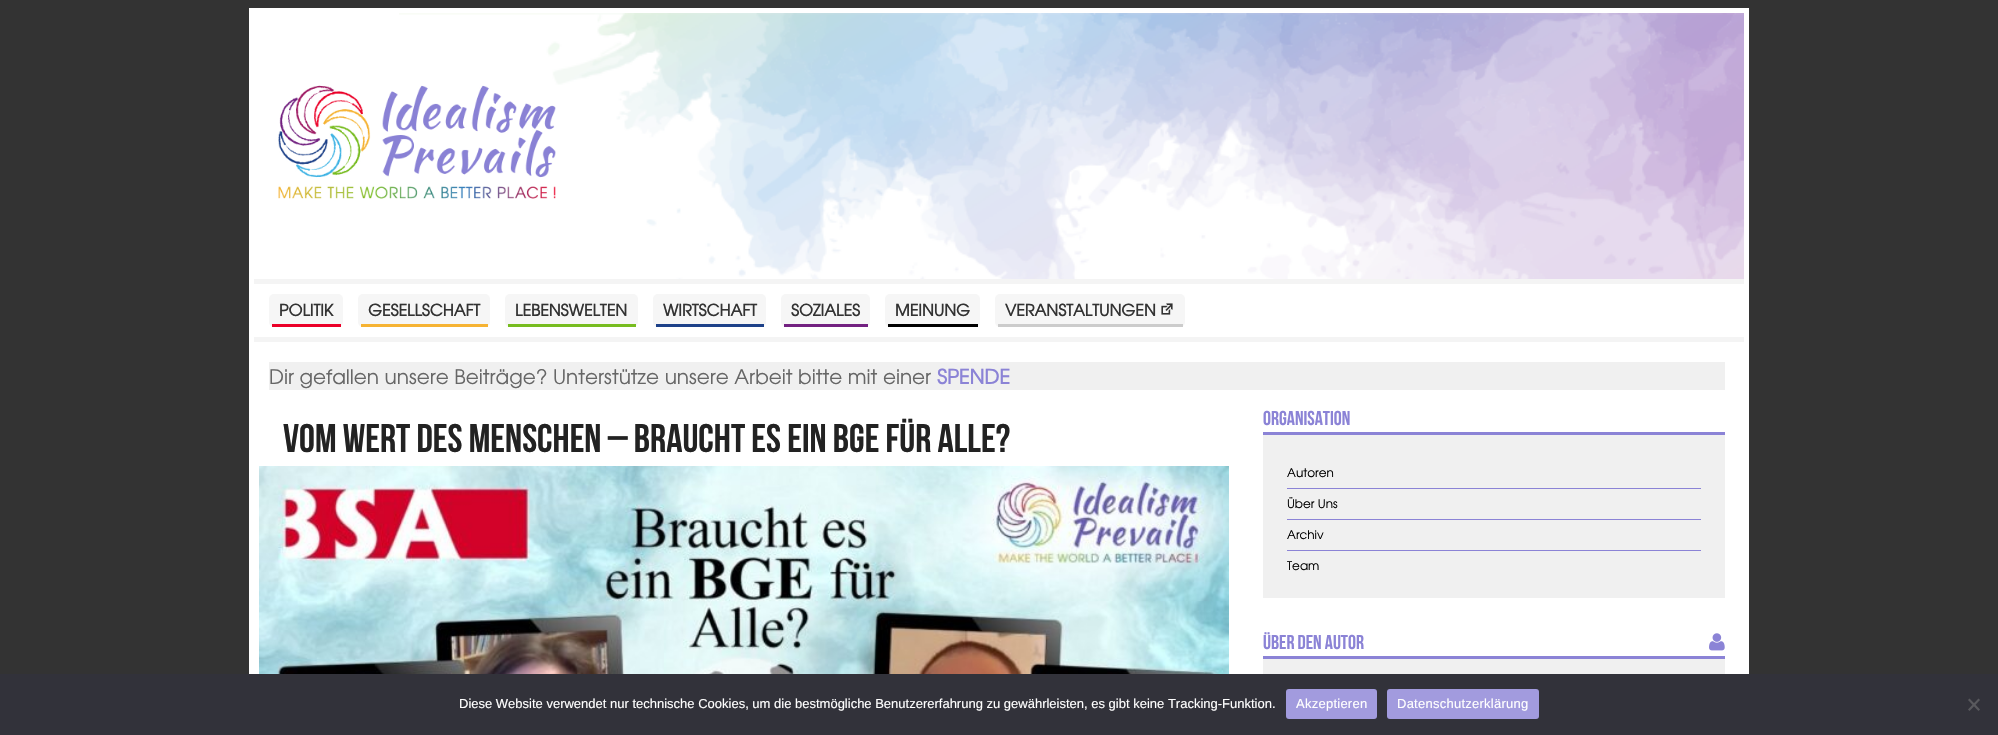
#include "include/core/SkBlurTypes.h"
#include "include/core/SkCanvas.h"
#include "include/core/SkData.h"
#include "include/core/SkFont.h"
#include "include/core/SkFontMgr.h"
#include "include/core/SkImage.h"
#include "include/core/SkMaskFilter.h"
#include "include/core/SkPaint.h"
#include "include/core/SkPathBuilder.h"
#include "include/core/SkTextBlob.h"
#include "include/effects/SkDashPathEffect.h"
#include "include/effects/SkGradientShader.h"
#include "include/utils/SkParsePath.h"

extern sk_sp<SkFontMgr> fontMgr;

void draw(SkCanvas* canvas) {
    SkPaint p;
    p.setAntiAlias(true);
    auto font = [&](const char* family, int weight, float size, bool italic = false) {
        SkFontStyle style(weight, SkFontStyle::kNormal_Width,
            italic ? SkFontStyle::kItalic_Slant : SkFontStyle::kUpright_Slant);
        SkFont result(fontMgr->matchFamilyStyle(family, style), size);
        result.setSubpixel(true);
        return result;
    };
    auto drawTracked = [&](const char* s, float x, float y, const SkFont& font, const SkPaint& ink, float letter, float word) {
        std::vector<SkGlyphID> glyphs(font.countText(s, strlen(s), SkTextEncoding::kUTF8));
        std::vector<float> xs(glyphs.size());
        font.textToGlyphs(s, strlen(s), SkTextEncoding::kUTF8, glyphs);
        font.getXPos(glyphs, xs, x);
        float extra = 0;
        for (size_t i = 0; i < glyphs.size(); i++) {
            xs[i] += extra;
            extra += letter + word * (glyphs[i] == font.unicharToGlyph(' '));
        }
        canvas->drawTextBlob(SkTextBlob::MakeFromPosHGlyphs(glyphs, xs, y, font), 0, 0, ink);
    };
    auto drawPhoto = [&](const char* path, float l, float t, float r, float b) {
        auto image = SkImages::DeferredFromEncodedData(SkData::MakeFromFileName(path));
        canvas->drawImageRect(image, SkRect::MakeLTRB(l, t, r, b), SkSamplingOptions());
    };
    canvas->clear(0xFF333333);
    p.setColor(0xFFFFFFFF);
    canvas->drawRect(SkRect::MakeLTRB(249, 8, 1749, 342), p);
    drawPhoto("media/1.png", 399, 13, 1744, 279);
    drawPhoto("media/2.png", 278, 85, 556, 199);
    p.setColor(0xFFF4F4F4);
    canvas->drawRect(SkRect::MakeLTRB(254, 279, 1744, 284), p);
    canvas->drawRect(SkRect::MakeLTRB(254, 337, 1744, 342), p);
    p.setColor(0xFFF6F6F6);
    canvas->drawRoundRect(SkRect::MakeLTRB(269, 294, 343, 327), 5, 5, p);
    p.setColor(0xFFEB0028);
    canvas->drawRect(SkRect::MakeLTRB(272, 324, 341, 327), p);
    auto font1 = font("TeX Gyre Adventor", 700, 16);
    p.setColor(0xFF333333);
    canvas->drawString("POLITIK", 279, 316, font1, p);
    p.setColor(0xFFF6F6F6);
    canvas->drawRoundRect(SkRect::MakeLTRB(358, 294, 490, 327), 5, 5, p);
    p.setColor(0xFFF6B333);
    canvas->drawRect(SkRect::MakeLTRB(361, 324, 488, 327), p);
    p.setColor(0xFF333333);
    canvas->drawString("GESELLSCHAFT", 368, 316, font1, p);
    p.setColor(0xFFF6F6F6);
    canvas->drawRoundRect(SkRect::MakeLTRB(505, 294, 638, 327), 5, 5, p);
    p.setColor(0xFF77BC1F);
    canvas->drawRect(SkRect::MakeLTRB(508, 324, 636, 327), p);
    p.setColor(0xFF333333);
    canvas->drawString("LEBENSWELTEN", 515, 316, font1, p);
    p.setColor(0xFFF6F6F6);
    canvas->drawRoundRect(SkRect::MakeLTRB(653, 294, 766, 327), 5, 5, p);
    p.setColor(0xFF1D4189);
    canvas->drawRect(SkRect::MakeLTRB(656, 324, 764, 327), p);
    p.setColor(0xFF333333);
    canvas->drawString("WIRTSCHAFT", 663, 316, font1, p);
    p.setColor(0xFFF6F6F6);
    canvas->drawRoundRect(SkRect::MakeLTRB(781, 294, 870, 327), 5, 5, p);
    p.setColor(0xFF732181);
    canvas->drawRect(SkRect::MakeLTRB(784, 324, 868, 327), p);
    p.setColor(0xFF333333);
    canvas->drawString("SOZIALES", 791, 316, font1, p);
    p.setColor(0xFFF6F6F6);
    canvas->drawRoundRect(SkRect::MakeLTRB(885, 294, 980, 327), 5, 5, p);
    p.setColor(0xFF000000);
    canvas->drawRect(SkRect::MakeLTRB(888, 324, 978, 327), p);
    p.setColor(0xFF333333);
    canvas->drawString("MEINUNG", 895, 316, font1, p);
    p.setColor(0xFFF6F6F6);
    canvas->drawRoundRect(SkRect::MakeLTRB(995, 294, 1185, 327), 5, 5, p);
    p.setColor(0xFFCCCCCC);
    canvas->drawRect(SkRect::MakeLTRB(998, 324, 1183, 327), p);
    p.setColor(0xFF333333);
    canvas->drawString("VERANSTALTUNGEN", 1005, 316, font1, p);
    drawPhoto("media/3.png", 1161, 303, 1173, 315);
    p.setColor(0xFFFFFFFF);
    canvas->drawRect(SkRect::MakeLTRB(249, 342, 1749, 674), p);
    p.setColor(0xFFF0F0F0);
    canvas->drawRect(SkRect::MakeLTRB(269, 362, 1725, 390), p);
    auto font2 = font("TeX Gyre Adventor", 400, 20);
    p.setColor(0xFF666666);
    canvas->drawString("Dir gefallen unsere Beiträge? Unterstütze unsere Arbeit bitte mit einer", 269, 384, font2, p);
    auto font3 = font("TeX Gyre Adventor", 700, 20);
    p.setColor(0xFF8B83D6);
    canvas->drawString("SPENDE", 937, 384, font3, p);
    auto font4 = font("Bebas Neue", 700, 40);
    p.setColor(0xFF222222);
    canvas->drawString("Vom Wert des Menschen – Braucht es ein BGE für alle?", 283, 452, font4, p);
    drawPhoto("media/4.png", 259, 466, 1229, 674);
    p.setColor(0xFFF0F0F0);
    canvas->drawRect(SkRect::MakeLTRB(1263, 435, 1725, 598), p);
    p.setColor(0xFF8B83D6);
    canvas->drawRect(SkRect::MakeLTRB(1263, 432, 1725, 435), p);
    auto font5 = font("Bebas Neue", 700, 20);
    canvas->drawString("Organisation", 1263, 425, font5, p);
    auto font6 = font("TeX Gyre Adventor", 400, 12);
    p.setColor(0xFF000000);
    canvas->drawString("Autoren", 1287, 477, font6, p);
    p.setColor(0xFF8B83D6);
    canvas->drawRect(SkRect::MakeLTRB(1287, 488, 1701, 489), p);
    p.setColor(0xFF000000);
    canvas->drawString("Über Uns", 1287, 508, font6, p);
    p.setColor(0xFF8B83D6);
    canvas->drawRect(SkRect::MakeLTRB(1287, 519, 1701, 520), p);
    p.setColor(0xFF000000);
    canvas->drawString("Archiv", 1287, 539, font6, p);
    p.setColor(0xFF8B83D6);
    canvas->drawRect(SkRect::MakeLTRB(1287, 550, 1701, 551), p);
    p.setColor(0xFF000000);
    canvas->drawString("Team", 1287, 570, font6, p);
    p.setColor(0xFFF0F0F0);
    canvas->drawRect(SkRect::MakeLTRB(1263, 659, 1725, 674), p);
    p.setColor(0xFF8B83D6);
    canvas->drawRect(SkRect::MakeLTRB(1263, 656, 1725, 659), p);
    canvas->drawString("Über den Autor", 1263, 649, font5, p);
    drawPhoto("media/5.png", 1709, 633, 1725, 651);
    p.setColor(0xFF32323A);
    canvas->drawRect(SkRect::MakeLTRB(0, 674, 1998, 735), p);
    auto font7 = font("Liberation Sans", 400, 13);
    p.setColor(0xFFFFFFFF);
    canvas->drawString("Diese Website verwendet nur technische Cookies, um die bestmögliche Benutzererfahrung zu gewährleisten, es gibt keine Tracking-Funktion.", 459, 708, font7, p);
    p.setColor(0xFFA29BDE);
    canvas->drawRoundRect(SkRect::MakeLTRB(1286, 689, 1377, 719), 3, 3, p);
    p.setColor(0xFFFFFFFF);
    drawTracked("Akzeptieren", 1296, 708, font7, p, 0.25f, 0);
    p.setColor(0xFFA29BDE);
    canvas->drawRoundRect(SkRect::MakeLTRB(1387, 689, 1539, 719), 3, 3, p);
    p.setColor(0xFFFFFFFF);
    drawTracked("Datenschutzerklärung", 1397, 708, font7, p, 0.25f, 0);
    p.setColor(0xFF59595D);
    canvas->drawPath(SkPathBuilder().moveTo(1978.5f, 698.5f).lineTo(1980, 700).lineTo(1969.5f, 711).lineTo(1968, 709.5f).close().detach(), p);
    canvas->drawPath(SkPathBuilder().moveTo(1968, 700).lineTo(1969.5f, 698.5f).lineTo(1980, 709.5f).lineTo(1978.5f, 711).close().detach(), p);
}
